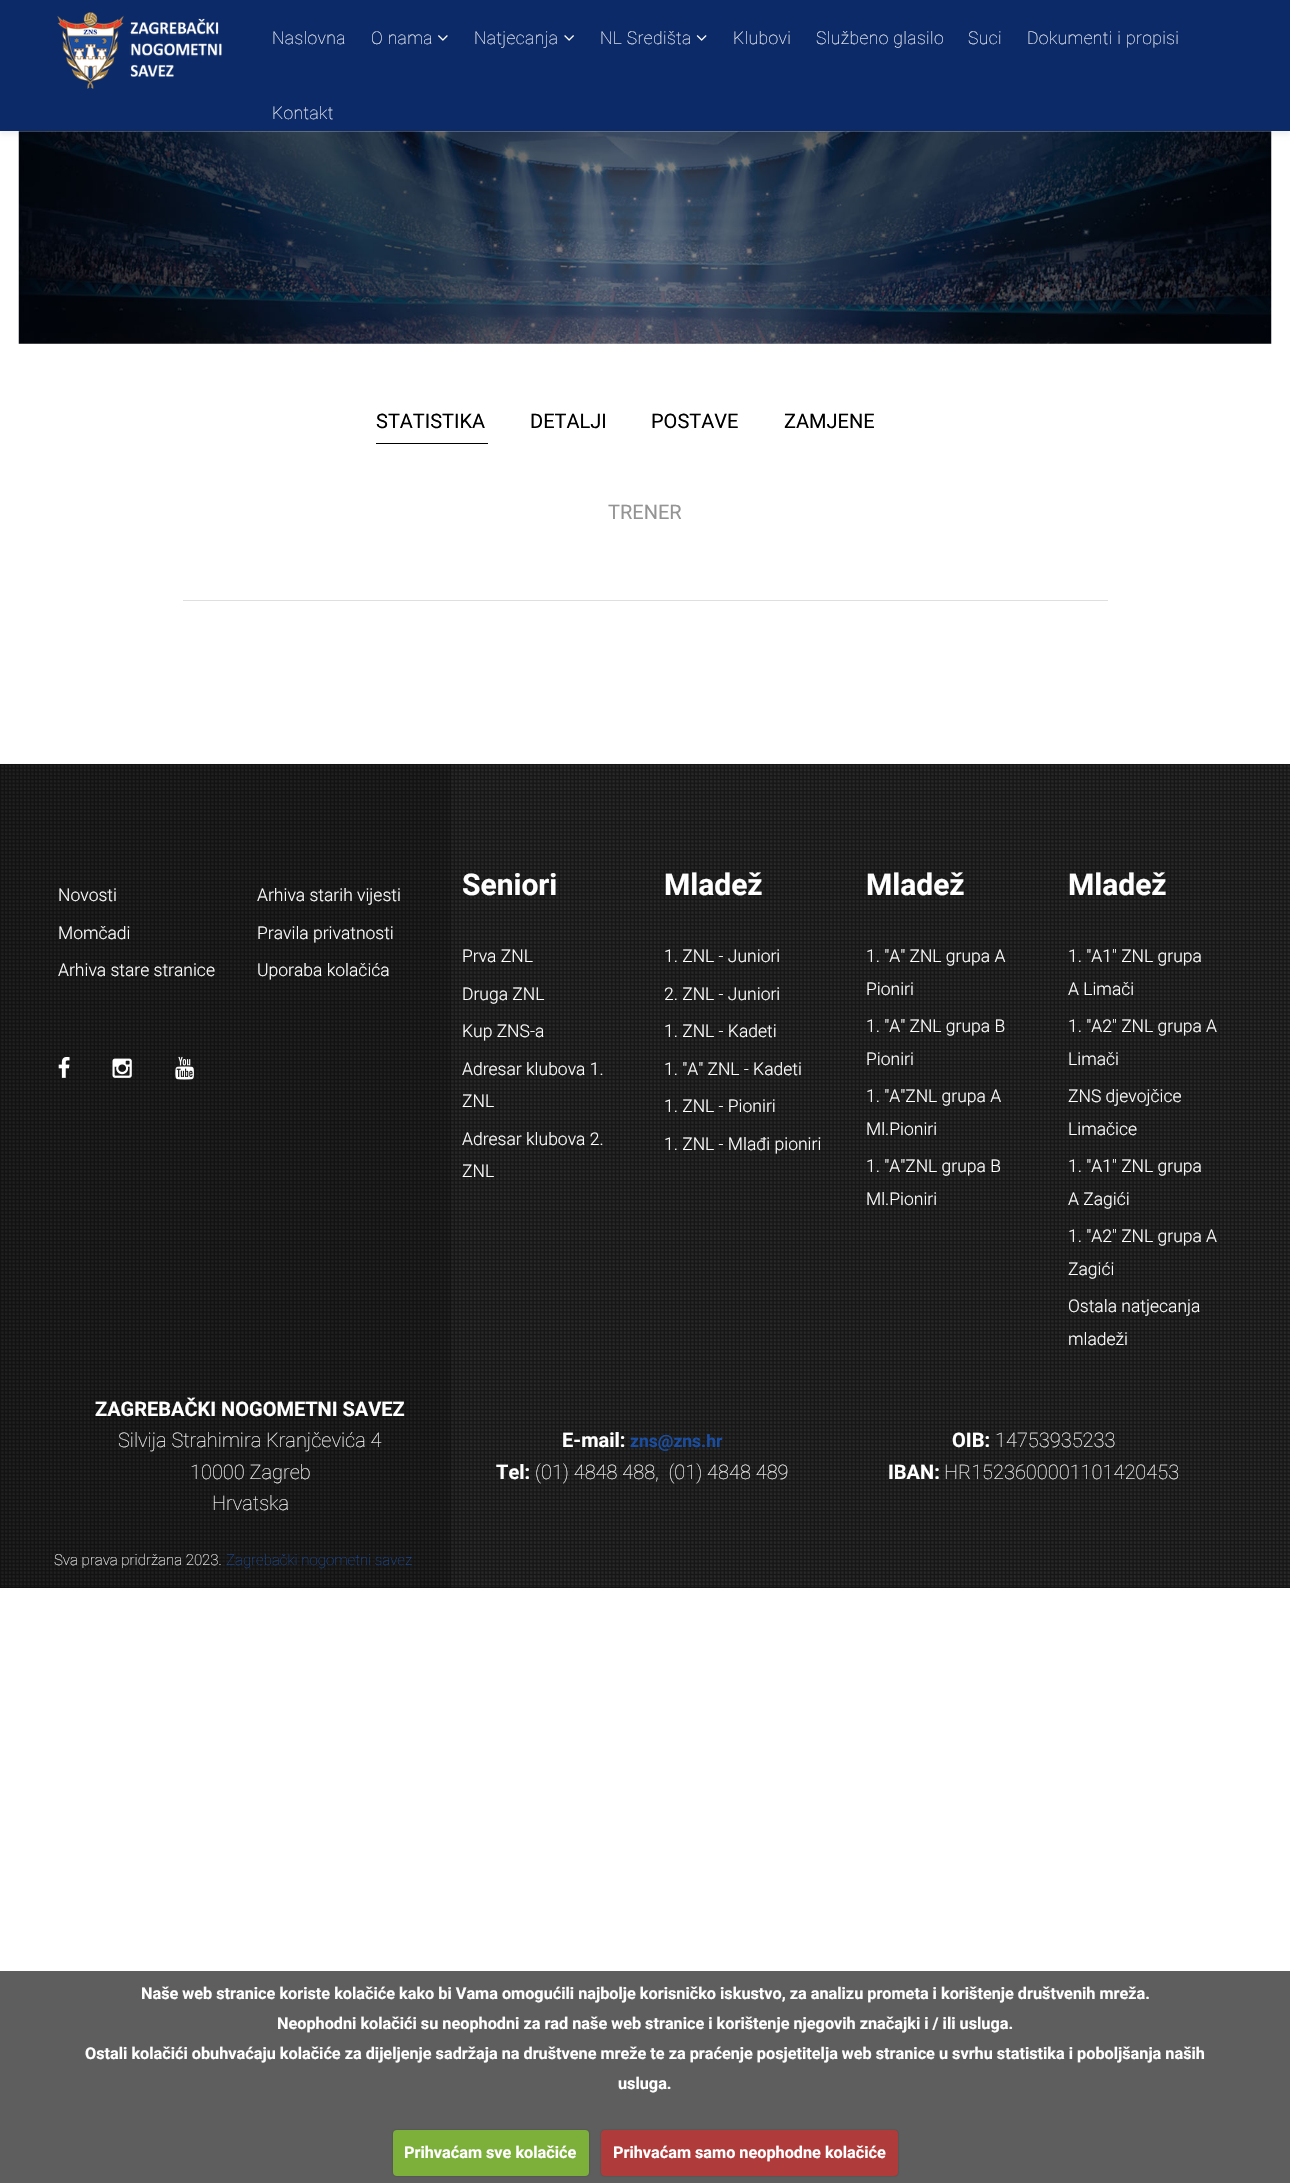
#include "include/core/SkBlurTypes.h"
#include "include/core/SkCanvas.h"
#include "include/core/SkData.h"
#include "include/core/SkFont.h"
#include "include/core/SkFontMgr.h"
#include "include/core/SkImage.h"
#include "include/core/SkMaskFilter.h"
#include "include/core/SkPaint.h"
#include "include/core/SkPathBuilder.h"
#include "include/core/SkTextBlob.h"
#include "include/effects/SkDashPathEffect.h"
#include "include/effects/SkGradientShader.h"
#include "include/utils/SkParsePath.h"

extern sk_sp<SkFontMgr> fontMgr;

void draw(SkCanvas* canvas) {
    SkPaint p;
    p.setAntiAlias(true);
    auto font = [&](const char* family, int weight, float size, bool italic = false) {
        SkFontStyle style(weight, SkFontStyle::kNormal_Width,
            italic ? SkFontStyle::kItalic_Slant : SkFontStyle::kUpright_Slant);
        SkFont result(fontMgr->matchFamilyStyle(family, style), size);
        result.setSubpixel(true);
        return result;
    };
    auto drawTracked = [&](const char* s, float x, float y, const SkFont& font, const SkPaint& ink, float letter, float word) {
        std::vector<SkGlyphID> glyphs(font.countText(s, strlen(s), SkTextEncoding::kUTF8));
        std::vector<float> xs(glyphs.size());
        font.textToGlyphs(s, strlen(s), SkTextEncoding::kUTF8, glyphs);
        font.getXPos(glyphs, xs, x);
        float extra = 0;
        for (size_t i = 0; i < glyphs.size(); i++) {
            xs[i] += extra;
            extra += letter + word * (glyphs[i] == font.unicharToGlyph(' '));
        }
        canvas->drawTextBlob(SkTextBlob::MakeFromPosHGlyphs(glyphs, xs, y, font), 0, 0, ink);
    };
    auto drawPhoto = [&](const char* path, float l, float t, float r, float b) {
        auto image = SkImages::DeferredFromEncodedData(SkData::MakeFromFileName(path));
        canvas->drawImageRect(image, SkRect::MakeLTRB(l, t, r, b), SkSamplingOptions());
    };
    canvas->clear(0xFFFFFFFF);
    p.setColor(0x0D000000);
    p.setMaskFilter(SkMaskFilter::MakeBlur(kNormal_SkBlurStyle, 2));
    canvas->drawRect(SkRect::MakeLTRB(0, 4, 1290, 135), p);
    p.setMaskFilter(nullptr);
    p.setColor(0xFF0C2A68);
    canvas->drawRect(SkRect::MakeLTRB(0, 0, 1290, 131), p);
    drawPhoto("media/1.png", 57, 12, 222, 89);
    auto font1 = font("Roboto", 100, 17.5f);
    p.setColor(0xFFFFFFFF);
    drawTracked("Naslovna", 272, 44, font1, p, 0.4f, 0);
    drawTracked("O nama", 371, 44, font1, p, 0.4f, 0);
    drawPhoto("media/2.png", 438, 35, 448, 41);
    drawTracked("Natjecanja", 474, 44, font1, p, 0.4f, 0);
    drawPhoto("media/3.png", 564, 35, 574, 41);
    drawTracked("NL Središta", 600, 44, font1, p, 0.4f, 0);
    drawPhoto("media/4.png", 696, 35, 707, 41);
    {
        const struct { const char* s; float x, y; } items[] = {
            {"Klubovi", 733, 44},
            {"Službeno glasilo", 816, 44},
            {"Suci", 968, 44},
            {"Dokumenti i propisi", 1027, 44},
            {"Kontakt", 272, 119},
        };
        for (auto [s, x, y] : items) {
            drawTracked(s, x, y, font1, p, 0.4f, 0);
        }
    }
    drawPhoto("media/5.png", 18, 131, 1272, 344);
    p.setColor(0xFF000000);
    canvas->drawRect(SkRect::MakeLTRB(376, 443, 488, 444), p);
    auto font2 = font("Roboto", 400, 20);
    {
        const struct { const char* s; float x, y; } items[] = {
            {"STATISTIKA", 376, 428},
            {"DETALJI", 530, 428},
            {"POSTAVE", 651, 428},
            {"ZAMJENE", 784, 428},
        };
        for (auto [s, x, y] : items) {
            canvas->drawString(s, x, y, font2, p);
        }
    }
    p.setColor(0xFFDFDFDF);
    canvas->drawRect(SkRect::MakeLTRB(183, 600, 1108, 601), p);
    p.setColor(0xFF949494);
    canvas->drawString("TRENER", 608, 519, font2, p);
    p.setColor(0xFF121111);
    canvas->drawRect(SkRect::MakeLTRB(0, 764, 1290, 1588), p);
    drawPhoto("media/6.png", 0, 763, 1290, 1588);
    p.setColor(0x33000000);
    canvas->drawRect(SkRect::MakeLTRB(0, 764, 451, 1588), p);
    auto font3 = font("Roboto", 300, 17.5f);
    p.setColor(0xFFFFFFFF);
    {
        const struct { const char* s; float x, y; } items[] = {
            {"Novosti", 58, 901},
            {"Momčadi", 58, 939},
            {"Arhiva stare stranice", 58, 976},
            {"Arhiva starih vijesti", 257, 901},
            {"Pravila privatnosti", 257, 939},
            {"Uporaba kolačića", 257, 976},
        };
        for (auto [s, x, y] : items) {
            canvas->drawString(s, x, y, font3, p);
        }
    }
    drawPhoto("media/7.png", 58, 1057, 70, 1078);
    drawPhoto("media/8.png", 112, 1058, 132, 1078);
    drawPhoto("media/9.png", 175, 1056, 194, 1080);
    auto font4 = font("Roboto", 700, 30);
    canvas->drawString("Seniori", 462, 895, font4, p);
    {
        const struct { const char* s; float x, y; } items[] = {
            {"Prva ZNL", 462, 962},
            {"Druga ZNL", 462, 1000},
            {"Kup ZNS-a", 462, 1037},
            {"Adresar klubova 1.", 462, 1075},
            {"ZNL", 462, 1107},
            {"Adresar klubova 2.", 462, 1145},
            {"ZNL", 462, 1177},
        };
        for (auto [s, x, y] : items) {
            canvas->drawString(s, x, y, font3, p);
        }
    }
    canvas->drawString("Mladež", 664, 895, font4, p);
    {
        const struct { const char* s; float x, y; } items[] = {
            {"1. ZNL - Juniori", 664, 962},
            {"2. ZNL - Juniori", 664, 1000},
            {"1. ZNL - Kadeti", 664, 1037},
            {"1. \"A\" ZNL - Kadeti", 664, 1075},
            {"1. ZNL - Pioniri", 664, 1112},
            {"1. ZNL - Mlađi pioniri", 664, 1150},
        };
        for (auto [s, x, y] : items) {
            canvas->drawString(s, x, y, font3, p);
        }
    }
    canvas->drawString("Mladež", 866, 895, font4, p);
    {
        const struct { const char* s; float x, y; } items[] = {
            {"1. \"A\" ZNL grupa A", 866, 962},
            {"Pioniri", 866, 995},
            {"1. \"A\" ZNL grupa B", 866, 1032},
            {"Pioniri", 866, 1065},
            {"1. \"A\"ZNL grupa A", 866, 1102},
            {"Ml.Pioniri", 866, 1135},
            {"1. \"A\"ZNL grupa B", 866, 1172},
            {"Ml.Pioniri", 866, 1205},
        };
        for (auto [s, x, y] : items) {
            canvas->drawString(s, x, y, font3, p);
        }
    }
    canvas->drawString("Mladež", 1068, 895, font4, p);
    {
        const struct { const char* s; float x, y; } items[] = {
            {"1. \"A1\" ZNL grupa", 1068, 962},
            {"A Limači", 1068, 995},
            {"1. \"A2\" ZNL grupa A", 1068, 1032},
            {"Limači", 1068, 1065},
            {"ZNS djevojčice", 1068, 1102},
            {"Limačice", 1068, 1135},
            {"1. \"A1\" ZNL grupa", 1068, 1172},
            {"A Zagići", 1068, 1205},
            {"1. \"A2\" ZNL grupa A", 1068, 1242},
            {"Zagići", 1068, 1275},
            {"Ostala natjecanja", 1068, 1312},
            {"mladeži", 1068, 1345},
        };
        for (auto [s, x, y] : items) {
            canvas->drawString(s, x, y, font3, p);
        }
    }
    auto font5 = font("Roboto", 700, 20);
    canvas->drawString("ZAGREBAČKI NOGOMETNI SAVEZ", 95, 1416, font5, p);
    auto font6 = font("Roboto", 100, 20);
    {
        const struct { const char* s; float x, y; } items[] = {
            {"Silvija Strahimira Kranjčevića 4", 118, 1447},
            {"10000 Zagreb", 190, 1479},
            {"Hrvatska", 212, 1510},
        };
        for (auto [s, x, y] : items) {
            canvas->drawString(s, x, y, font6, p);
        }
    }
    canvas->drawString("E-mail:", 562, 1447, font5, p);
    auto font7 = font("Roboto", 700, 17.5f);
    p.setColor(0xFF1A4D9F);
    canvas->drawString("zns@zns.hr", 630, 1447, font7, p);
    p.setColor(0xFFFFFFFF);
    canvas->drawString("Tel:", 496, 1479, font5, p);
    canvas->drawString("(01) 4848 488,  (01) 4848 489", 535, 1479, font6, p);
    canvas->drawString("OIB:", 952, 1447, font5, p);
    canvas->drawString("14753935233", 995, 1447, font6, p);
    canvas->drawString("IBAN:", 888, 1479, font5, p);
    canvas->drawString("HR1523600001101420453", 944, 1479, font6, p);
    auto font8 = font("Roboto", 100, 15);
    canvas->drawString("Sva prava pridržana 2023.", 54, 1565, font8, p);
    p.setColor(0xFF1A4D9F);
    canvas->drawString("Zagrebački nogometni savez", 226, 1565, font8, p);
    p.setColor(0xFF5E5E5E);
    canvas->drawRect(SkRect::MakeLTRB(0, 1971, 1290, 2183), p);
    auto font9 = font("Roboto", 700, 16.25f);
    p.setColor(0xFFFFFFFF);
    {
        const struct { const char* s; float x, y; } items[] = {
            {"Naše web stranice koriste kolačiće kako bi Vama omogućili najbolje korisničko iskustvo, za analizu prometa i korištenje društvenih mreža.", 141, 1999},
            {"Neophodni kolačići su neophodni za rad naše web stranice i korištenje njegovih značajki i / ili usluga.", 277, 2029},
            {"Ostali kolačići obuhvaćaju kolačiće za dijeljenje sadržaja na društvene mreže te za praćenje posjetitelja web stranice u svrhu statistika i poboljšanja naših", 85, 2059},
            {"usluga.", 618, 2089},
        };
        for (auto [s, x, y] : items) {
            canvas->drawString(s, x, y, font9, p);
        }
    }
    p.setColor(0x40000000);
    p.setMaskFilter(SkMaskFilter::MakeBlur(kNormal_SkBlurStyle, 1));
    canvas->drawRoundRect(SkRect::MakeLTRB(393, 2130, 589, 2176), 4, 4, p);
    p.setMaskFilter(nullptr);
    p.setColor(0xFF7DAF3B);
    canvas->drawRoundRect(SkRect::MakeLTRB(393, 2130, 589, 2176), 4, 4, p);
    p.setColor(0xFFFFFFFF);
    canvas->drawString("Prihvaćam sve kolačiće", 404, 2158, font9, p);
    p.setColor(0x40000000);
    p.setMaskFilter(SkMaskFilter::MakeBlur(kNormal_SkBlurStyle, 1));
    canvas->drawRoundRect(SkRect::MakeLTRB(601, 2130, 898, 2176), 4, 4, p);
    p.setMaskFilter(nullptr);
    p.setColor(0xFFAF3B3B);
    canvas->drawRoundRect(SkRect::MakeLTRB(601, 2130, 898, 2176), 4, 4, p);
    p.setColor(0xFFFFFFFF);
    canvas->drawString("Prihvaćam samo neophodne kolačiće", 613, 2158, font9, p);
}
